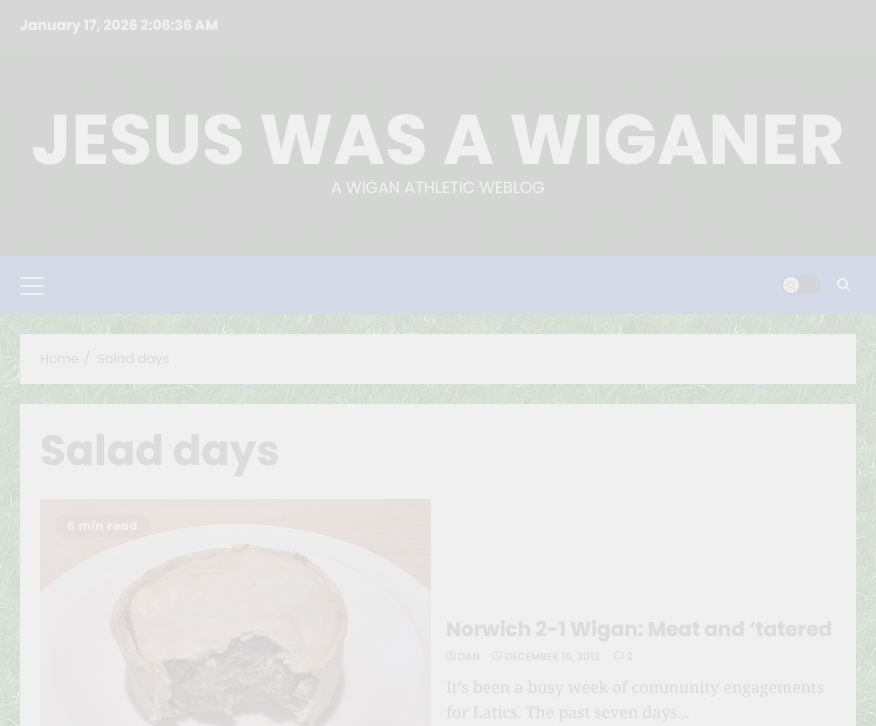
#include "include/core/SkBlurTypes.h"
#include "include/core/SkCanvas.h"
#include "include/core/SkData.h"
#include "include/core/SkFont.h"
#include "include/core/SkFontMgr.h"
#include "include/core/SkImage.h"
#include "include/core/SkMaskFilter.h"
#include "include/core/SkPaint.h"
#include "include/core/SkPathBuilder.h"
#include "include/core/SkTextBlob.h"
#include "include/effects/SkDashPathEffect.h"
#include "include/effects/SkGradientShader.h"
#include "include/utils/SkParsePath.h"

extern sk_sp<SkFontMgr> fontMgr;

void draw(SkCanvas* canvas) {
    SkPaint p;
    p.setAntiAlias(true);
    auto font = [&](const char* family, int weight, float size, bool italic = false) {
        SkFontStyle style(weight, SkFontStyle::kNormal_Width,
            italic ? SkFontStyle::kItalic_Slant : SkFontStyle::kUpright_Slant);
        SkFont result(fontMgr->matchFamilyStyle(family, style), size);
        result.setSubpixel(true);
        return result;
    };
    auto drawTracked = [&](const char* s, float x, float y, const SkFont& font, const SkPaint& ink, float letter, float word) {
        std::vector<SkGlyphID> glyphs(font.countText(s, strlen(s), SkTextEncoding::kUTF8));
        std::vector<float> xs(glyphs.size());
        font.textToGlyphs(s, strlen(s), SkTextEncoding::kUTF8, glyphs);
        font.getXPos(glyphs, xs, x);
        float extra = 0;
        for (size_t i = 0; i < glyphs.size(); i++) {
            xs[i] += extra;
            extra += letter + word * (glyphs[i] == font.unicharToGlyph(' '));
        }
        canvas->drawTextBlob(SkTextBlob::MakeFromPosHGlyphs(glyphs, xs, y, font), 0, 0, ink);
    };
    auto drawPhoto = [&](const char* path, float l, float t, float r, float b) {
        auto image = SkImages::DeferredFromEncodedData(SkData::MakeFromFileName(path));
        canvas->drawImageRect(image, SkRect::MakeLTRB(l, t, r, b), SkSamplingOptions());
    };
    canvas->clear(0xFFFFFFFF);
    drawPhoto("media/1.png", 0, 314, 876, 726);
    p.setColor(0xFFD7D7D7);
    canvas->drawRect(SkRect::MakeLTRB(0, 0, 876, 50), p);
    auto font1 = font("Poppins", 700, 14);
    p.setColor(0xFFF0F0F0);
    canvas->drawString("January 17, 2026 2:06:36 AM", 20, 30, font1, p);
    drawPhoto("media/2.png", 0, 50, 876, 256);
    auto font2 = font("Poppins", 700, 70);
    canvas->drawString("JESUS WAS A WIGANER", 31, 164, font2, p);
    auto font3 = font("Poppins", 400, 16);
    canvas->drawString("A WIGAN ATHLETIC WEBLOG", 331, 193, font3, p);
    {
        const struct { float l, t, r, b; SkColor color; } items[] = {
            {0, 256, 876, 314, 0xFFD4DAE8},
            {20, 285, 43, 287, 0xFFF0F0F0},
            {20, 277, 43, 279, 0xFFF0F0F0},
            {20, 293, 43, 295, 0xFFF0F0F0},
        };
        for (auto [l, t, r, b, color] : items) {
            p.setColor(color);
            canvas->drawRect(SkRect::MakeLTRB(l, t, r, b), p);
        }
    }
    p.setColor(0xFFD4D5D9);
    canvas->drawRoundRect(SkRect::MakeLTRB(781, 275, 821, 295), 10, 10, p);
    p.setColor(0xFFF0F0F0);
    canvas->drawCircle(791, 285, 8, p);
    drawPhoto("media/3.png", 785, 279, 797, 291);
    drawPhoto("media/4.png", 837, 278, 850, 291);
    canvas->drawRect(SkRect::MakeLTRB(20, 334, 856, 384), p);
    auto font4 = font("Poppins", 400, 13);
    p.setColor(0xFFDCDCDC);
    {
        const struct { const char* s; float x, y; } items[] = {
            {"Home", 40, 363},
            {"/", 84, 363},
            {"Salad days", 97, 363},
        };
        for (auto [s, x, y] : items) {
            canvas->drawString(s, x, y, font4, p);
        }
    }
    p.setColor(0xFFF0F0F0);
    canvas->drawRect(SkRect::MakeLTRB(20, 404, 856, 726), p);
    auto font5 = font("Poppins", 700, 42);
    p.setColor(0xFFDCDCDC);
    canvas->drawString("Salad days", 40, 465, font5, p);
    drawPhoto("media/5.png", 40, 499, 431, 726);
    p.setColor(0x33D4D4D4);
    canvas->drawRoundRect(SkRect::MakeLTRB(55, 514, 150, 538), 12, 12, p);
    auto font6 = font("Poppins", 700, 12);
    p.setColor(0xFFF0F0F0);
    drawTracked("6 min read", 67, 530, font6, p, 0.5f, 0);
    auto font7 = font("Poppins", 700, 20);
    p.setColor(0xFFDCDCDC);
    canvas->drawString("Norwich 2-1 Wigan: Meat and ‘tatered", 446, 636, font7, p);
    drawPhoto("media/6.png", 446, 650, 456, 661);
    auto font8 = font("Poppins", 500, 10);
    drawTracked("DAN", 458, 660, font8, p, 0.25f, 0);
    drawPhoto("media/7.png", 492, 650, 502, 661);
    drawTracked("DECEMBER 15, 2012", 505, 660, font8, p, 0.25f, 0);
    drawPhoto("media/8.png", 614, 651, 624, 660);
    drawTracked("2", 627, 660, font8, p, 0.25f, 0);
    auto font9 = font("Noto Serif", 400, 16);
    canvas->drawString("It’s been a busy week of community engagements", 446, 693, font9, p);
    canvas->drawString("for Latics. The past seven days...", 446, 718, font9, p);
}
